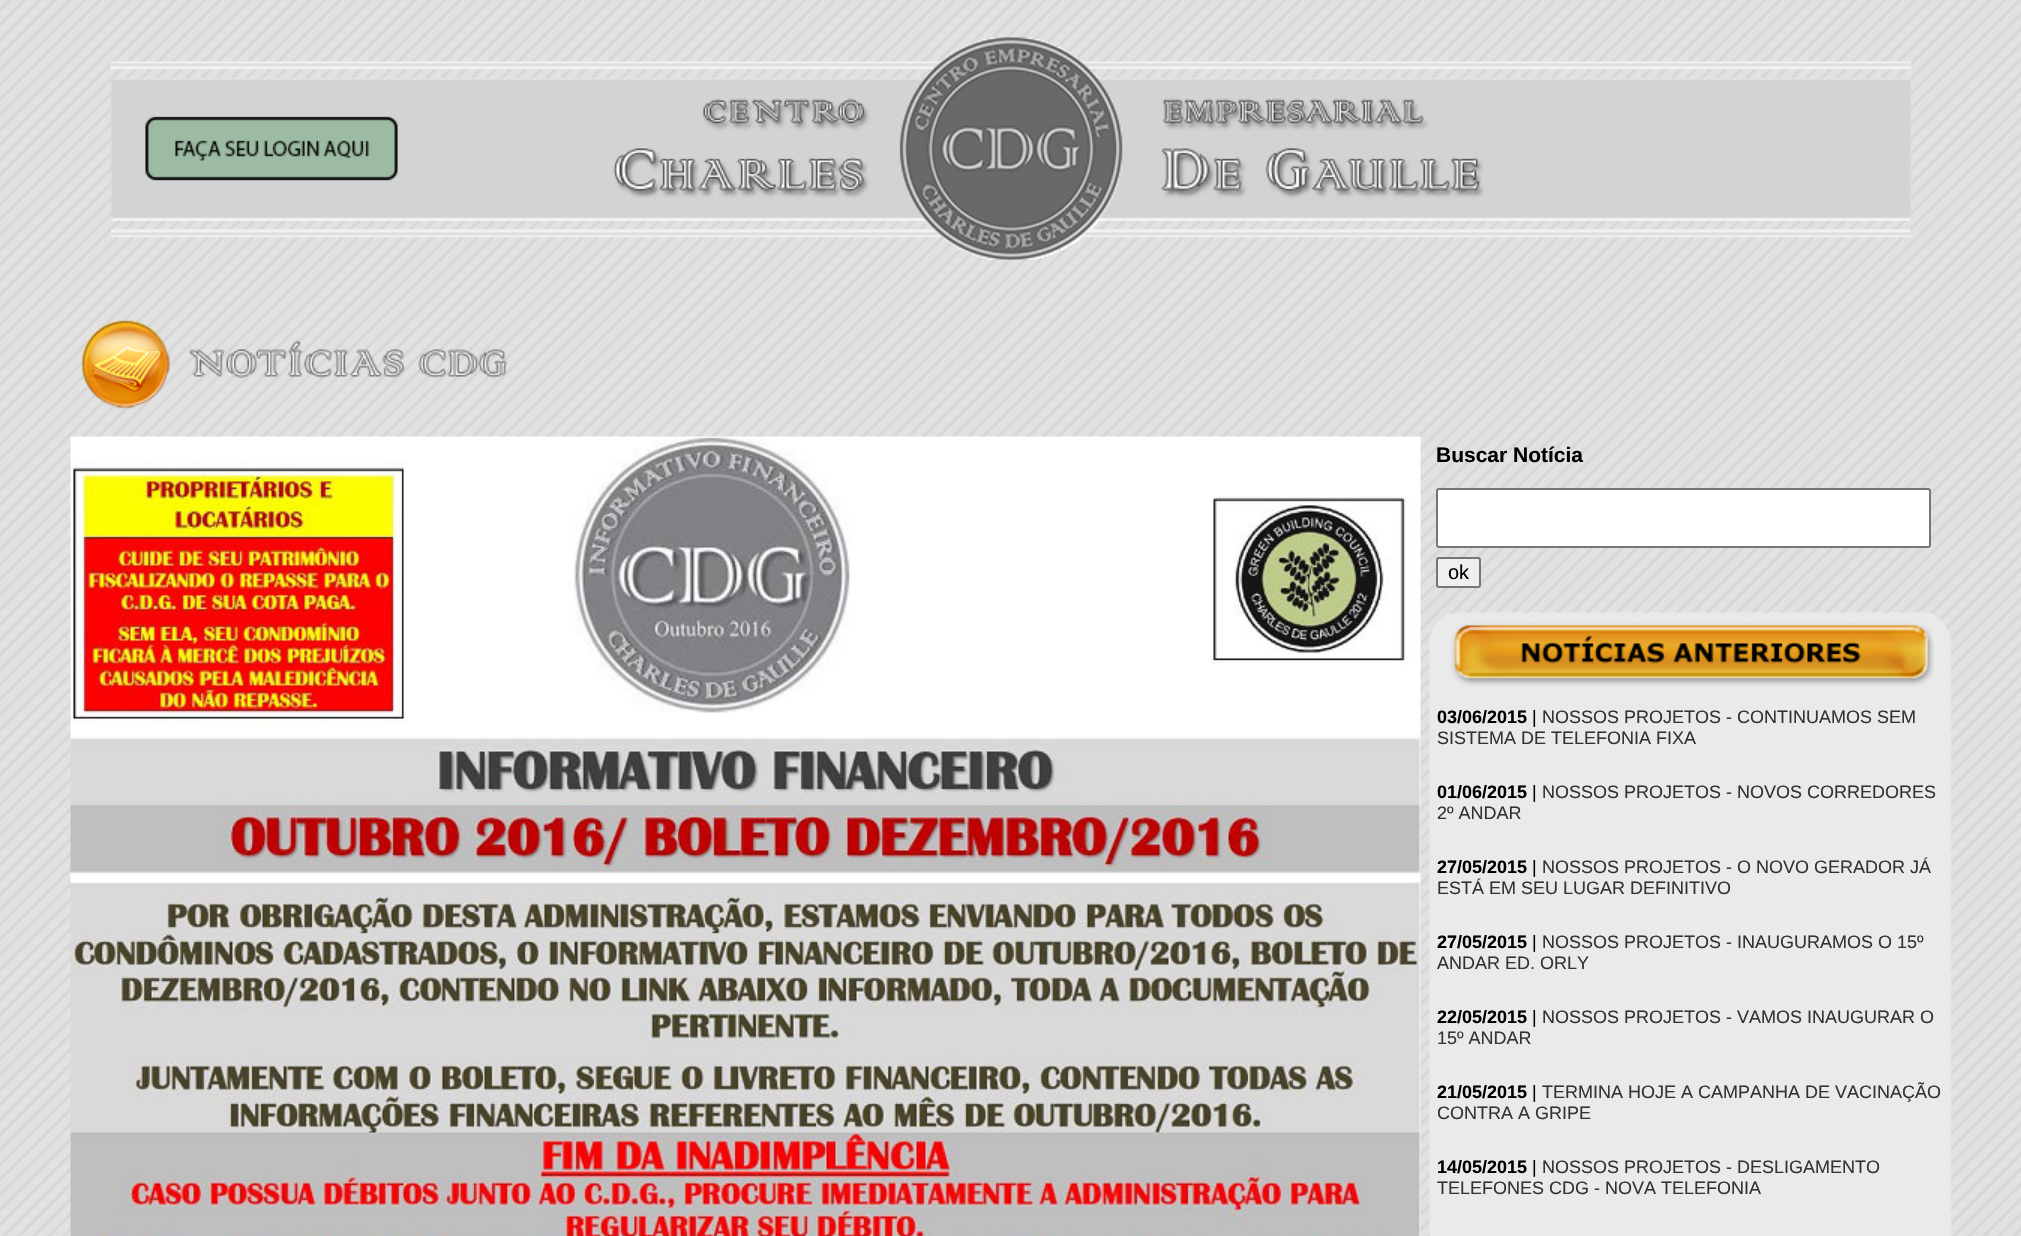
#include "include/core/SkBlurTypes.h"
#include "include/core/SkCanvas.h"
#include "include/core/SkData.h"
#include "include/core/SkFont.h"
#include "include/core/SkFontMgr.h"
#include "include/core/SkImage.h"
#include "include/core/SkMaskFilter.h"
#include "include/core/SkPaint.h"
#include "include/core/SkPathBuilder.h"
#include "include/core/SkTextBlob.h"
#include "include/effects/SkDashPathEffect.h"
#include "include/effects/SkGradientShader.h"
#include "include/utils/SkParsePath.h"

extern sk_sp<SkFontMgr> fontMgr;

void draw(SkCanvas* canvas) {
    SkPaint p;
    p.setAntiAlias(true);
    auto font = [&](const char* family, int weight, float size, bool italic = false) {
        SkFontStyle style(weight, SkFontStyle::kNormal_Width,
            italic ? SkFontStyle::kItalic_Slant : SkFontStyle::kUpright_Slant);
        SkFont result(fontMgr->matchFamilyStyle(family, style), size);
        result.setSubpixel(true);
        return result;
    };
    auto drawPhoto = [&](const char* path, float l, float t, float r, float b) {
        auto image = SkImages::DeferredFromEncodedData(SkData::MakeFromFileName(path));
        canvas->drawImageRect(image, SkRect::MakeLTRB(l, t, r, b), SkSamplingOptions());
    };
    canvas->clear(0xFFFFFFFF);
    drawPhoto("media/1.png", 0, 0, 2021, 1236);
    drawPhoto("media/2.png", 111, 37, 1911, 260);
    drawPhoto("media/3.png", 145, 116, 398, 181);
    drawPhoto("media/4.png", 82, 320, 508, 409);
    drawPhoto("media/5.png", 70, 436, 1421, 1236);
    auto font1 = font("Liberation Sans", 700, 21);
    p.setColor(0xFF000000);
    canvas->drawString("Buscar Notícia", 1436, 462, font1, p);
    p.setColor(0xFFFFFFFF);
    canvas->drawRoundRect(SkRect::MakeLTRB(1437, 489, 1930, 547), 2, 2, p);
    p.setStyle(SkPaint::kStroke_Style);
    p.setStrokeWidth(2);
    p.setColor(0xFF767676);
    canvas->drawRoundRect(SkRect::MakeLTRB(1437, 489, 1930, 547), 2, 2, p);
    p.setStyle(SkPaint::kFill_Style);
    p.setColor(0xFFEFEFEF);
    canvas->drawRoundRect(SkRect::MakeLTRB(1437, 558, 1480, 587), 2, 2, p);
    p.setStyle(SkPaint::kStroke_Style);
    p.setColor(0xFF767676);
    canvas->drawRoundRect(SkRect::MakeLTRB(1437, 558, 1480, 587), 2, 2, p);
    auto font2 = font("Liberation Sans", 400, 20);
    p.setStyle(SkPaint::kFill_Style);
    p.setColor(0xFF000000);
    canvas->drawString("ok", 1448, 579, font2, p);
    drawPhoto("media/6.png", 1429, 612, 1952, 699);
    drawPhoto("media/7.png", 1429, 699, 1952, 1236);
    auto font3 = font("Liberation Sans", 700, 18);
    canvas->drawString("03/06/2015", 1437, 723, font3, p);
    auto font4 = font("Liberation Sans", 400, 18);
    canvas->drawString("|", 1532, 723, font4, p);
    p.setColor(0xFF333333);
    canvas->drawString("NOSSOS PROJETOS - CONTINUAMOS SEM", 1542, 723, font4, p);
    canvas->drawString("SISTEMA DE TELEFONIA FIXA", 1437, 744, font4, p);
    p.setColor(0xFF000000);
    canvas->drawString("01/06/2015", 1437, 798, font3, p);
    canvas->drawString("|", 1532, 798, font4, p);
    p.setColor(0xFF333333);
    canvas->drawString("NOSSOS PROJETOS - NOVOS CORREDORES", 1542, 798, font4, p);
    canvas->drawString("2º ANDAR", 1437, 819, font4, p);
    p.setColor(0xFF000000);
    canvas->drawString("27/05/2015", 1437, 873, font3, p);
    canvas->drawString("|", 1532, 873, font4, p);
    p.setColor(0xFF333333);
    canvas->drawString("NOSSOS PROJETOS - O NOVO GERADOR JÁ", 1542, 873, font4, p);
    canvas->drawString("ESTÁ EM SEU LUGAR DEFINITIVO", 1437, 894, font4, p);
    p.setColor(0xFF000000);
    canvas->drawString("27/05/2015", 1437, 948, font3, p);
    canvas->drawString("|", 1532, 948, font4, p);
    p.setColor(0xFF333333);
    canvas->drawString("NOSSOS PROJETOS - INAUGURAMOS O 15º", 1542, 948, font4, p);
    canvas->drawString("ANDAR ED. ORLY", 1437, 969, font4, p);
    p.setColor(0xFF000000);
    canvas->drawString("22/05/2015", 1437, 1023, font3, p);
    canvas->drawString("|", 1532, 1023, font4, p);
    p.setColor(0xFF333333);
    canvas->drawString("NOSSOS PROJETOS - VAMOS INAUGURAR O", 1542, 1023, font4, p);
    canvas->drawString("15º ANDAR", 1437, 1044, font4, p);
    p.setColor(0xFF000000);
    canvas->drawString("21/05/2015", 1437, 1098, font3, p);
    canvas->drawString("|", 1532, 1098, font4, p);
    p.setColor(0xFF333333);
    canvas->drawString("TERMINA HOJE A CAMPANHA DE VACINAÇÃO", 1542, 1098, font4, p);
    canvas->drawString("CONTRA A GRIPE", 1437, 1119, font4, p);
    p.setColor(0xFF000000);
    canvas->drawString("14/05/2015", 1437, 1173, font3, p);
    canvas->drawString("|", 1532, 1173, font4, p);
    p.setColor(0xFF333333);
    canvas->drawString("NOSSOS PROJETOS - DESLIGAMENTO", 1542, 1173, font4, p);
    canvas->drawString("TELEFONES CDG - NOVA TELEFONIA", 1437, 1194, font4, p);
}
